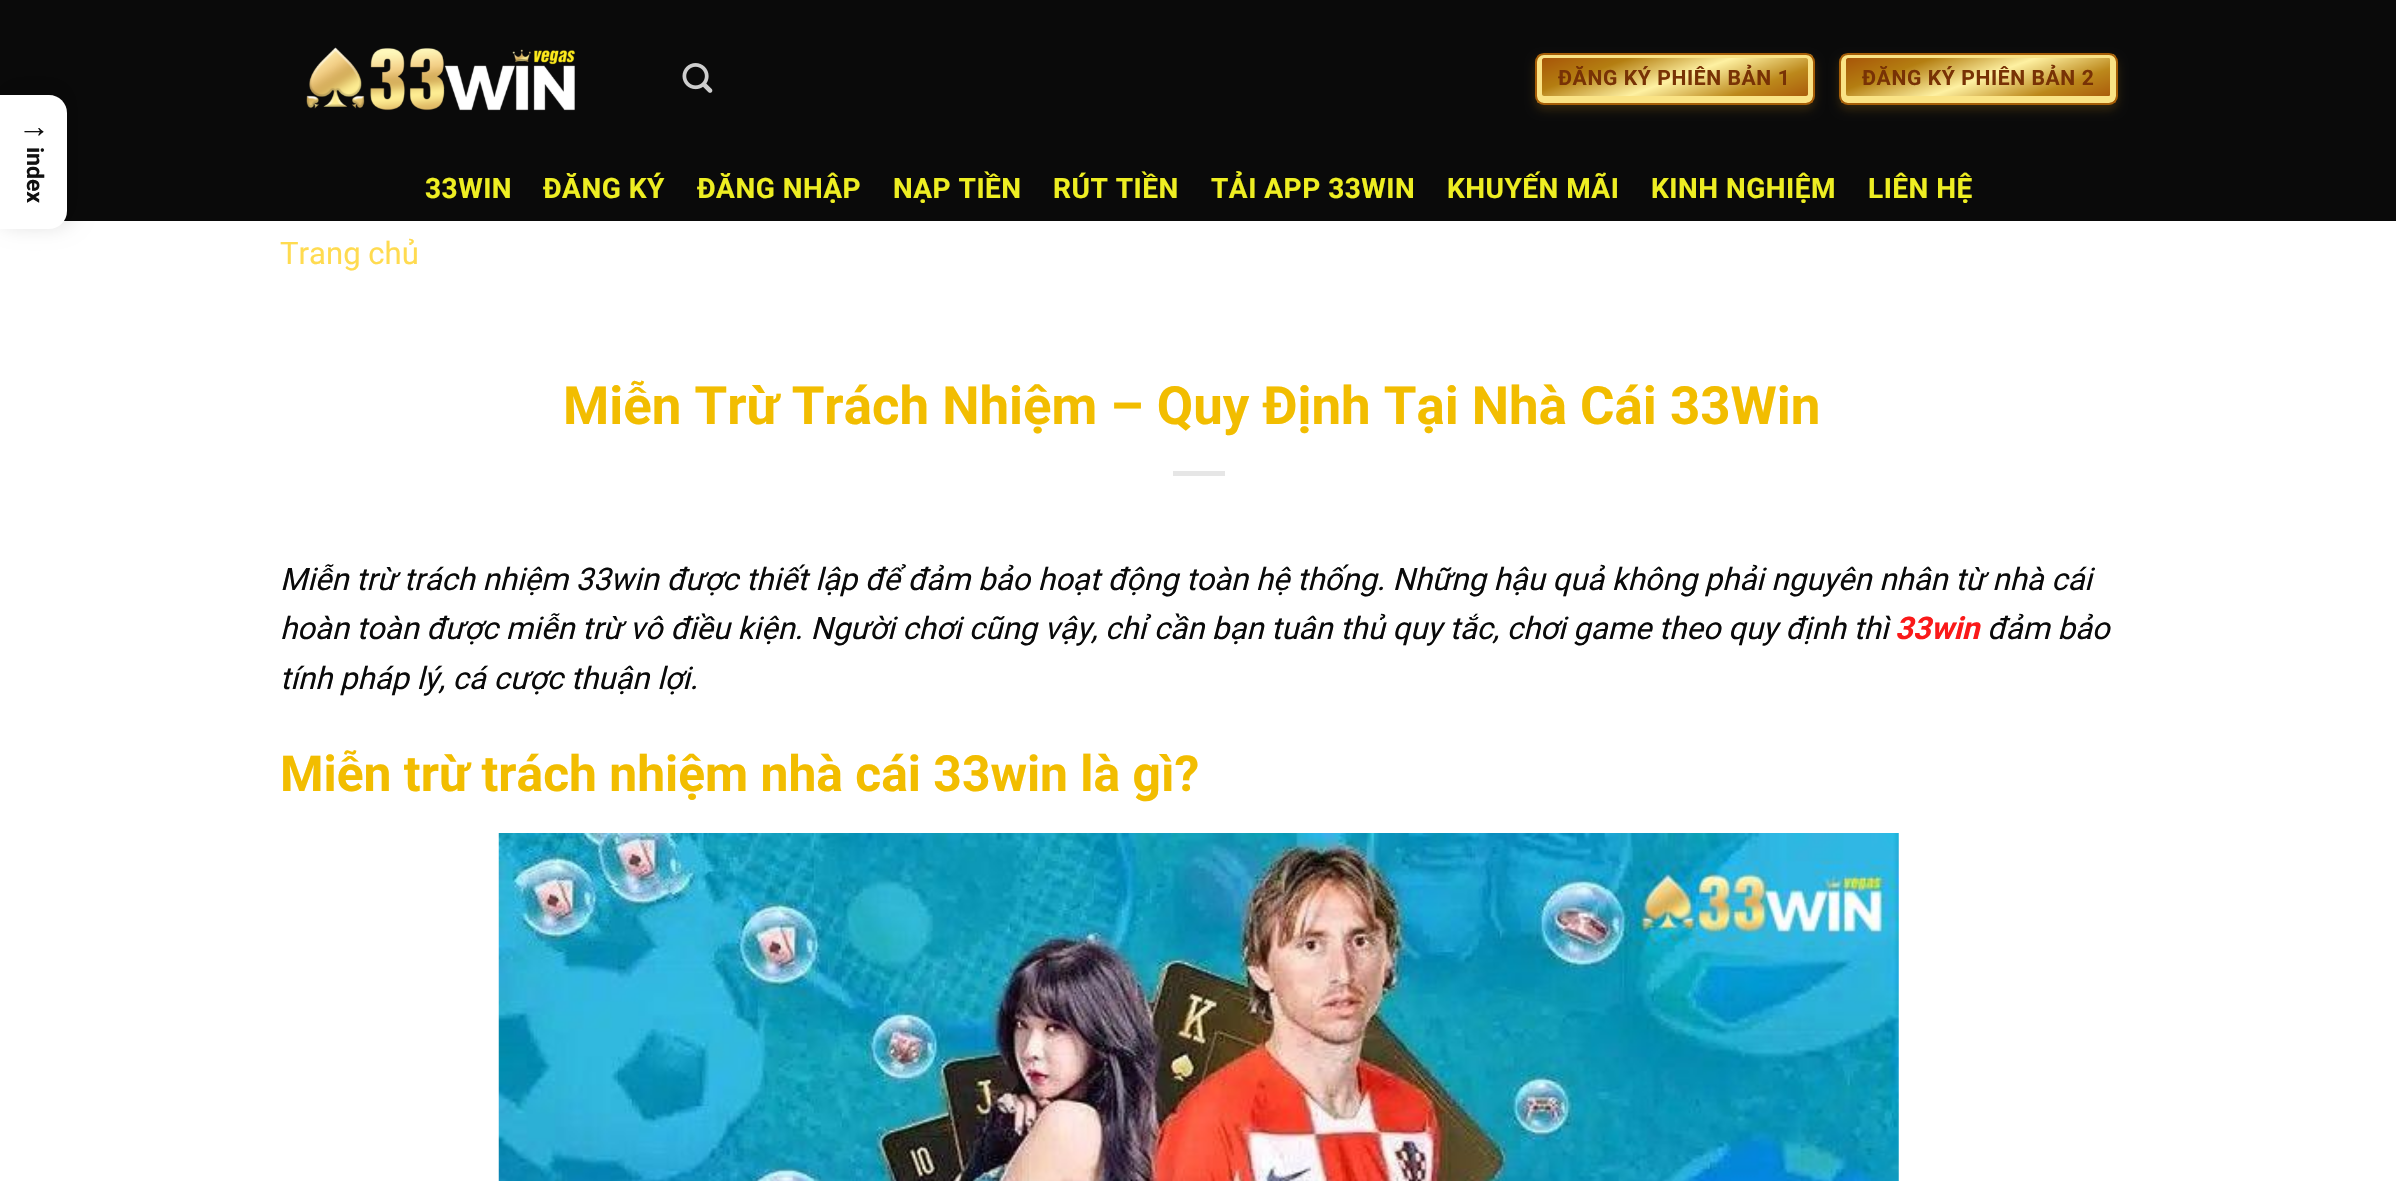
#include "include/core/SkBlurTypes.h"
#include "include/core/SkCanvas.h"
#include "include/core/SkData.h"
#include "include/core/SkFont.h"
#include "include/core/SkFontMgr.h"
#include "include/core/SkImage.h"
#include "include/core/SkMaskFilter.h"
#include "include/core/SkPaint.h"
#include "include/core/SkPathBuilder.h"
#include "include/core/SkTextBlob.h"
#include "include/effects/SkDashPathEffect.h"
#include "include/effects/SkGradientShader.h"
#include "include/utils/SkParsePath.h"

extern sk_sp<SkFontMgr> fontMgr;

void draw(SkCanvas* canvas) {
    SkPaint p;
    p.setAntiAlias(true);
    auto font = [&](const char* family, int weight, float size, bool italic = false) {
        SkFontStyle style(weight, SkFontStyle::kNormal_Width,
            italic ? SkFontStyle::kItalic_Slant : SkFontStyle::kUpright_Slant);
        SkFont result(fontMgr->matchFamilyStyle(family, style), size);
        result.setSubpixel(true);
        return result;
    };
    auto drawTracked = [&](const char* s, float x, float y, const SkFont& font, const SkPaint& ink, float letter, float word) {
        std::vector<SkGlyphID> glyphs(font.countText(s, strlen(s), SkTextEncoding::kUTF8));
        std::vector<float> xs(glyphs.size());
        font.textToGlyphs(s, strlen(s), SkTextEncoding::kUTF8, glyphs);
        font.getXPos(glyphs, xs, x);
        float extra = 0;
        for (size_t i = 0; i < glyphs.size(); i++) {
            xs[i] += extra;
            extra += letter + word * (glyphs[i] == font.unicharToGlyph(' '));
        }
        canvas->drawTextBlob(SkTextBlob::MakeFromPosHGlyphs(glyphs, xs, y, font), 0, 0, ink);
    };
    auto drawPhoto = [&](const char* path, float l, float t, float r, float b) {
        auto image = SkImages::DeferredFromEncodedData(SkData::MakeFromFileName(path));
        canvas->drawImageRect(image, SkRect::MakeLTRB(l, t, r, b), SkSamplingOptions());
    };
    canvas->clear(0xFFFFFFFF);
    p.setColor(0xFF0A0A0A);
    canvas->drawRect(SkRect::MakeLTRB(0, 0, 2396, 221), p);
    p.setColor(0x1A000000);
    p.setMaskFilter(SkMaskFilter::MakeBlur(kNormal_SkBlurStyle, 9));
    canvas->drawRoundRect(SkRect::MakeLTRB(-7, 77, 77, 229), 26, 26, p);
    p.setMaskFilter(nullptr);
    p.setColor(0xFFFFFFFF);
    canvas->drawPath(SkPathBuilder().moveTo(0, 95).lineTo(49, 95).cubicTo(59, 95, 67, 103, 67, 113).lineTo(67, 211).cubicTo(67, 221, 59, 229, 49, 229).lineTo(0, 229).close().detach(), p);
    auto font1 = font("Liberation Sans", 700, 32);
    p.setColor(0xFF111111);
    canvas->drawString("→", 18, 137, font1, p);
    auto font2 = font("Roboto", 700, 23);
    canvas->save();
    canvas->rotate(90, 27, 147);
    canvas->drawString("index", 27, 147, font2, p);
    canvas->restore();
    drawPhoto("media/1.png", 306, 47, 575, 111);
    drawPhoto("media/2.png", 682, 63, 713, 93);
    p.setColor(0x666E5014);
    p.setMaskFilter(SkMaskFilter::MakeBlur(kNormal_SkBlurStyle, 5));
    canvas->drawRoundRect(SkRect::MakeLTRB(1535, 58, 1815, 110), 9, 9, p);
    p.setMaskFilter(nullptr);
    canvas->save();
    canvas->clipPath(SkPathBuilder().moveTo(1544, 53).lineTo(1806, 53).cubicTo(1811, 53, 1815, 57, 1815, 62).lineTo(1815, 96).cubicTo(1815, 101, 1811, 105, 1806, 105).lineTo(1544, 105).cubicTo(1539, 105, 1535, 101, 1535, 96).lineTo(1535, 62).cubicTo(1535, 57, 1539, 53, 1544, 53).close().detach(), true);
    {
        const SkColor colors[] = {0xFFA54E07, 0xFFB47E11, 0xFFFEF1A2, 0xFFBC881B, 0xFFA54E07};
        const float stops[] = {0, 0.25f, 0.5f, 0.75f, 1};
        const SkPoint ends[] = {{1651, 13}, {1699, 145}};
        p.setShader(SkGradientShader::MakeLinear(ends, colors, stops, 5, SkTileMode::kClamp));
        p.setAlpha(255);
    }
    canvas->drawRect(SkRect::MakeLTRB(1537, 54, 1813, 103), p);
    canvas->restore();
    p.setShader(nullptr);
    p.setColor(0xFFFAE385);
    canvas->drawPath(SkPathBuilder(SkPathFillType::kEvenOdd).moveTo(1544, 54).cubicTo(1540, 54, 1537, 57, 1537, 61).lineTo(1537, 96).cubicTo(1537, 100, 1540, 103, 1544, 103).lineTo(1806, 103).cubicTo(1810, 103, 1813, 100, 1813, 96).lineTo(1813, 61).cubicTo(1813, 57, 1810, 54, 1806, 54).close().moveTo(1544, 58).cubicTo(1543, 58, 1542, 59, 1542, 60).lineTo(1542, 94).cubicTo(1542, 95, 1543, 96, 1544, 96).lineTo(1806, 96).cubicTo(1807, 96, 1808, 95, 1808, 94).lineTo(1808, 60).cubicTo(1808, 59, 1807, 58, 1806, 58).close().detach(), p);
    p.setStyle(SkPaint::kStroke_Style);
    p.setStrokeWidth(2);
    p.setColor(0xFFA55D07);
    canvas->drawRoundRect(SkRect::MakeLTRB(1536, 54, 1814, 104), 8, 8, p);
    auto font3 = font("Roboto", 700, 21.1f);
    p.setStyle(SkPaint::kFill_Style);
    p.setColor(0xFF783205);
    drawTracked("ĐĂNG KÝ PHIÊN BẢN 1", 1558, 85, font3, p, 0.6f, 0);
    p.setColor(0x666E5014);
    p.setMaskFilter(SkMaskFilter::MakeBlur(kNormal_SkBlurStyle, 5));
    canvas->drawRoundRect(SkRect::MakeLTRB(1839, 58, 2118, 110), 9, 9, p);
    p.setMaskFilter(nullptr);
    canvas->save();
    canvas->clipPath(SkPathBuilder().moveTo(1848, 53).lineTo(2109, 53).cubicTo(2114, 53, 2118, 57, 2118, 62).lineTo(2118, 96).cubicTo(2118, 101, 2114, 105, 2109, 105).lineTo(1848, 105).cubicTo(1843, 105, 1839, 101, 1839, 96).lineTo(1839, 62).cubicTo(1839, 57, 1843, 53, 1848, 53).close().detach(), true);
    {
        const SkColor colors[] = {0xFFA54E07, 0xFFB47E11, 0xFFFEF1A2, 0xFFBC881B, 0xFFA54E07};
        const float stops[] = {0, 0.25f, 0.5f, 0.75f, 1};
        const SkPoint ends[] = {{1954, 13}, {2002, 145}};
        p.setShader(SkGradientShader::MakeLinear(ends, colors, stops, 5, SkTileMode::kClamp));
        p.setAlpha(255);
    }
    canvas->drawRect(SkRect::MakeLTRB(1841, 54, 2116, 103), p);
    canvas->restore();
    p.setShader(nullptr);
    p.setColor(0xFFFAE385);
    canvas->drawPath(SkPathBuilder(SkPathFillType::kEvenOdd).moveTo(1848, 54).cubicTo(1844, 54, 1841, 57, 1841, 61).lineTo(1841, 96).cubicTo(1841, 100, 1844, 103, 1848, 103).lineTo(2109, 103).cubicTo(2113, 103, 2116, 100, 2116, 96).lineTo(2116, 61).cubicTo(2116, 57, 2113, 54, 2109, 54).close().moveTo(1848, 58).cubicTo(1847, 58, 1846, 59, 1846, 60).lineTo(1846, 94).cubicTo(1846, 95, 1847, 96, 1848, 96).lineTo(2109, 96).cubicTo(2110, 96, 2110, 95, 2110, 94).lineTo(2110, 60).cubicTo(2110, 59, 2110, 58, 2109, 58).close().detach(), p);
    p.setStyle(SkPaint::kStroke_Style);
    p.setColor(0xFFA55D07);
    canvas->drawRoundRect(SkRect::MakeLTRB(1840, 54, 2117, 104), 8, 8, p);
    p.setStyle(SkPaint::kFill_Style);
    p.setColor(0xFF783205);
    drawTracked("ĐĂNG KÝ PHIÊN BẢN 2", 1862, 85, font3, p, 0.6f, 0);
    auto font4 = font("Roboto", 700, 28);
    p.setColor(0xFFEEEE22);
    {
        const struct { const char* s; float x, y; } items[] = {
            {"33WIN", 425, 198},
            {"ĐĂNG KÝ", 543, 198},
            {"ĐĂNG NHẬP", 697, 198},
            {"NẠP TIỀN", 893, 198},
            {"RÚT TIỀN", 1053, 198},
            {"TẢI APP 33WIN", 1211, 198},
            {"KHUYẾN MÃI", 1447, 198},
            {"KINH NGHIỆM", 1651, 198},
            {"LIÊN HỆ", 1868, 198},
        };
        for (auto [s, x, y] : items) {
            drawTracked(s, x, y, font4, p, 0.5f, 0);
        }
    }
    auto font5 = font("Roboto", 400, 31.08f);
    p.setColor(0xFFFFDB50);
    canvas->drawString("Trang chủ", 280, 264, font5, p);
    auto font6 = font("Roboto", 700, 52.8f);
    p.setColor(0xFFF2BD00);
    canvas->drawString("Miễn Trừ Trách Nhiệm – Quy Định Tại Nhà Cái 33Win", 563, 424, font6, p);
    p.setColor(0xFFE6E6E6);
    canvas->drawRect(SkRect::MakeLTRB(1173, 471, 1225, 476), p);
    auto font7 = font("Roboto", 400, 31.08f, true);
    p.setColor(0xFF0A0A0A);
    canvas->drawString("Miễn trừ trách nhiệm 33win được thiết lập để đảm bảo hoạt động toàn hệ thống. Những hậu quả không phải nguyên nhân từ nhà cái", 280, 590, font7, p);
    canvas->drawString("hoàn toàn được miễn trừ vô điều kiện. Người chơi cũng vậy, chỉ cần bạn tuân thủ quy tắc, chơi game theo quy định thì", 280, 639, font7, p);
    auto font8 = font("Roboto", 700, 31.08f, true);
    p.setColor(0xFFFA1919);
    canvas->drawString("33win", 1895, 639, font8, p);
    p.setColor(0xFF0A0A0A);
    canvas->drawString("đảm bảo", 1987, 639, font7, p);
    canvas->drawString("tính pháp lý, cá cược thuận lợi.", 280, 689, font7, p);
    auto font9 = font("Roboto", 700, 49.75f);
    p.setColor(0xFFF2BD00);
    canvas->drawString("Miễn trừ trách nhiệm nhà cái 33win là gì?", 280, 791, font9, p);
    drawPhoto("media/3.png", 498, 833, 1899, 1181);
}
